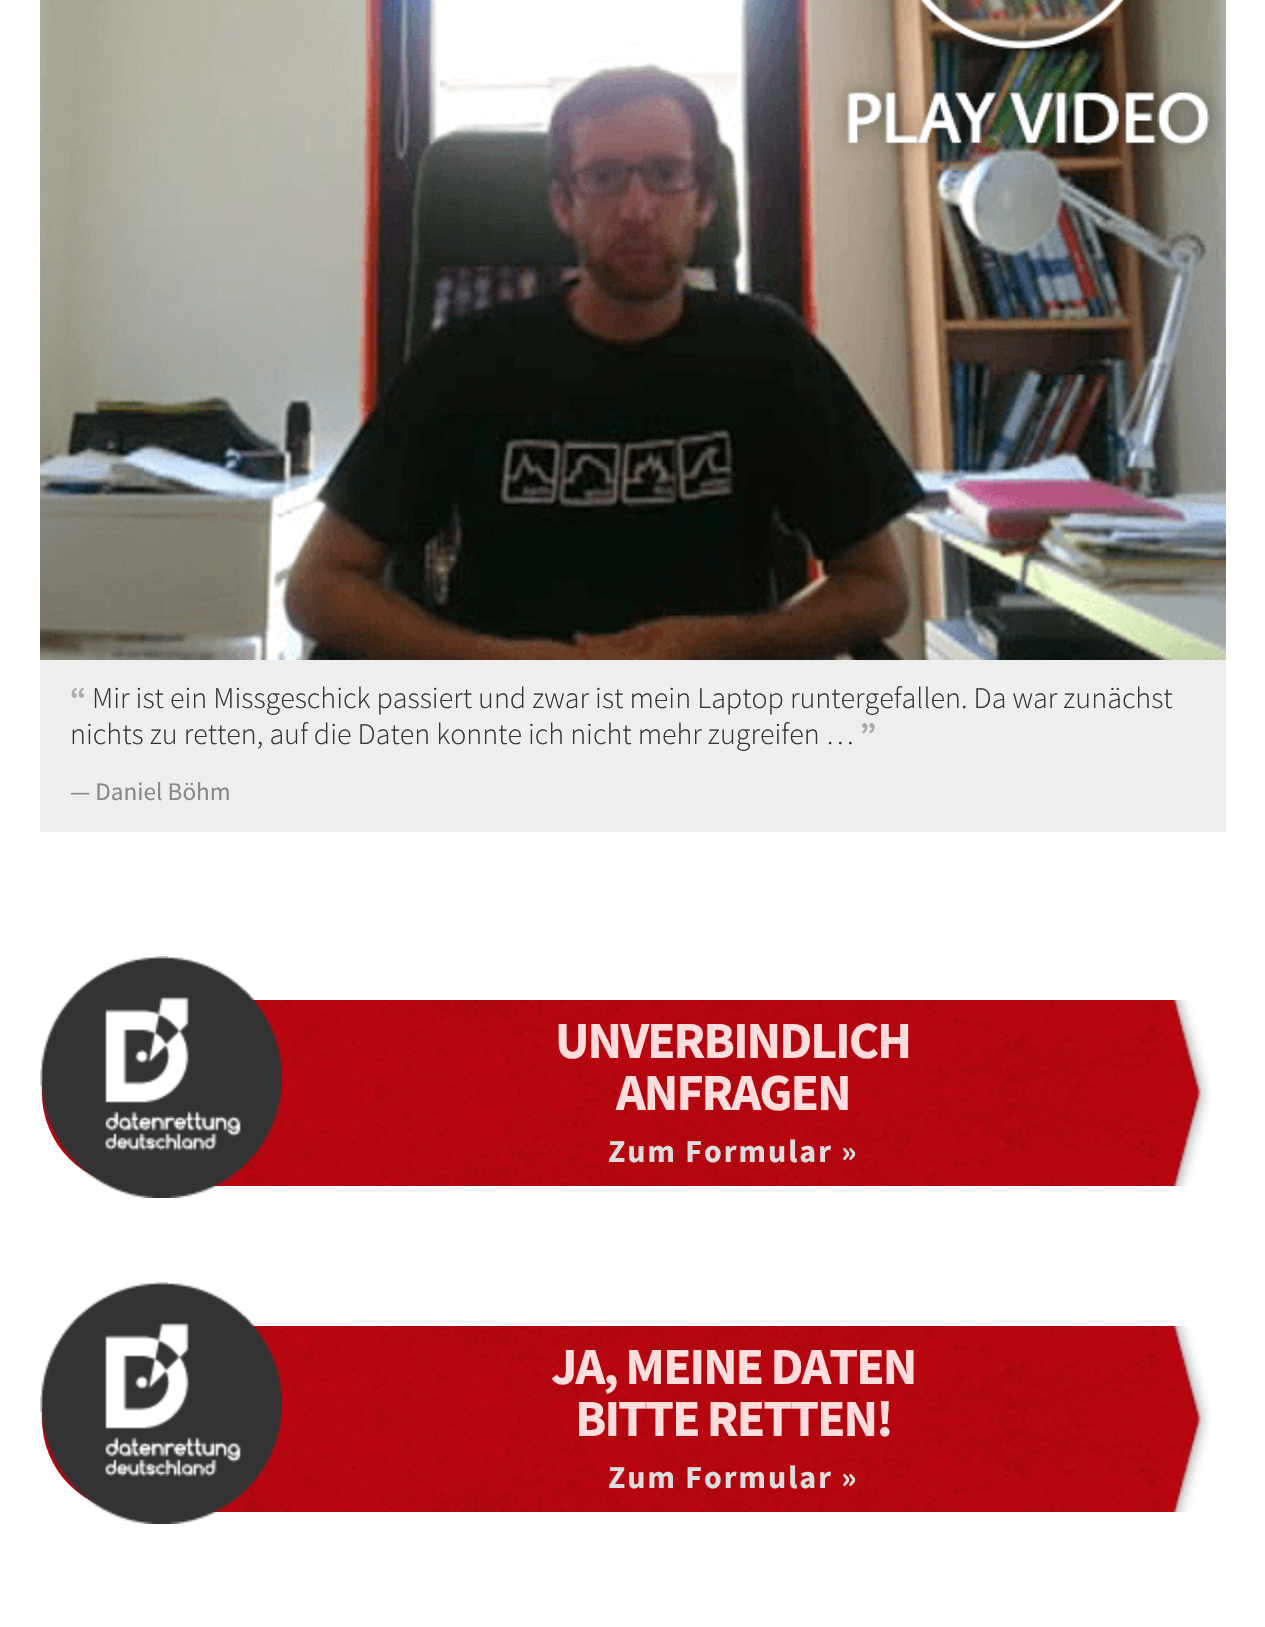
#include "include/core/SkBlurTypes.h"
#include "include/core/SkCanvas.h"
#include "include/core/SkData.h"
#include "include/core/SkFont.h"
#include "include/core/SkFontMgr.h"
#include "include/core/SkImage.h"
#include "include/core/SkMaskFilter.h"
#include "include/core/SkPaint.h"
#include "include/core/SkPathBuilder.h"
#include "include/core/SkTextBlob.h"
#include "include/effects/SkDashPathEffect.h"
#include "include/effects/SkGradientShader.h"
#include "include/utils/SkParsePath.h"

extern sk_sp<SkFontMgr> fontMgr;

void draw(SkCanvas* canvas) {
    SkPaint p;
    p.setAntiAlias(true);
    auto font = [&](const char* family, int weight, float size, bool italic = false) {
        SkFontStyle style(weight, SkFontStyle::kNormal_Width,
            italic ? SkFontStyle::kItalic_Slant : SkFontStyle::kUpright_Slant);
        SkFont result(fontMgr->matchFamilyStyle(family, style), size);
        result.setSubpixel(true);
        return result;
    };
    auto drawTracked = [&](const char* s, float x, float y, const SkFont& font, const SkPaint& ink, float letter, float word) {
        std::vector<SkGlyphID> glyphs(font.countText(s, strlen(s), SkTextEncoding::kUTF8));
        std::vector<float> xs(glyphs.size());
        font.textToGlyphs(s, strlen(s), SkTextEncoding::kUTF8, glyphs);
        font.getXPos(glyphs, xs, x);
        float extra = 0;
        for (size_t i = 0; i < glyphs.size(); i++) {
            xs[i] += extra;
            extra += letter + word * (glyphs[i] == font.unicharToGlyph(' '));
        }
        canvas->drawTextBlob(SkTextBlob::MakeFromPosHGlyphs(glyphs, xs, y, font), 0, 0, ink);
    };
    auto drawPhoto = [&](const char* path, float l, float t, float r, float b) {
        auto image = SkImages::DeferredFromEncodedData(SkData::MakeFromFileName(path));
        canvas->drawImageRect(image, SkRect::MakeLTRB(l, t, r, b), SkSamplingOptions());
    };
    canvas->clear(0xFFFFFFFF);
    p.setColor(0xFFEEEEEE);
    canvas->drawRect(SkRect::MakeLTRB(40, 660, 1226, 832), p);
    drawPhoto("media/1.png", 40, 0, 1226, 660);
    auto font1 = font("Source Sans Pro", 700, 30);
    p.setColor(0xFFAAAAAA);
    canvas->drawString("“", 70, 708, font1, p);
    auto font2 = font("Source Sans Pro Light", 300, 30);
    p.setColor(0xFF333333);
    canvas->drawString("Mir ist ein Missgeschick passiert und zwar ist mein Laptop runtergefallen. Da war zunächst", 92, 708, font2, p);
    canvas->drawString("nichts zu retten, auf die Daten konnte ich nicht mehr zugreifen …", 70, 744, font2, p);
    p.setColor(0xFFAAAAAA);
    canvas->drawString("”", 860, 744, font1, p);
    auto font3 = font("Source Sans Pro", 400, 25.25f);
    p.setColor(0xFF888888);
    canvas->drawString("— Daniel Böhm", 70, 800, font3, p);
    drawPhoto("media/3.png", 42, 1000, 1210, 1186);
    drawPhoto("media/2.png", 40, 956, 282, 1198);
    auto font4 = font("Source Sans Pro", 700, 52);
    p.setColor(0xFFFFDDDD);
    drawTracked("UNVERBINDLICH", 555, 1058, font4, p, -2, 0);
    drawTracked("ANFRAGEN", 616, 1110, font4, p, -2, 0);
    auto font5 = font("Source Sans Pro", 700, 32);
    p.setColor(0xFFDDDDDD);
    drawTracked("Zum Formular »", 608, 1162, font5, p, 2, 0);
    drawPhoto("media/5.png", 42, 1326, 1210, 1512);
    drawPhoto("media/4.png", 40, 1282, 282, 1524);
    p.setColor(0xFFFFDDDD);
    drawTracked("JA, MEINE DATEN", 551, 1384, font4, p, -2, 0);
    drawTracked("BITTE RETTEN!", 575, 1436, font4, p, -2, 0);
    p.setColor(0xFFDDDDDD);
    drawTracked("Zum Formular »", 608, 1488, font5, p, 2, 0);
}
